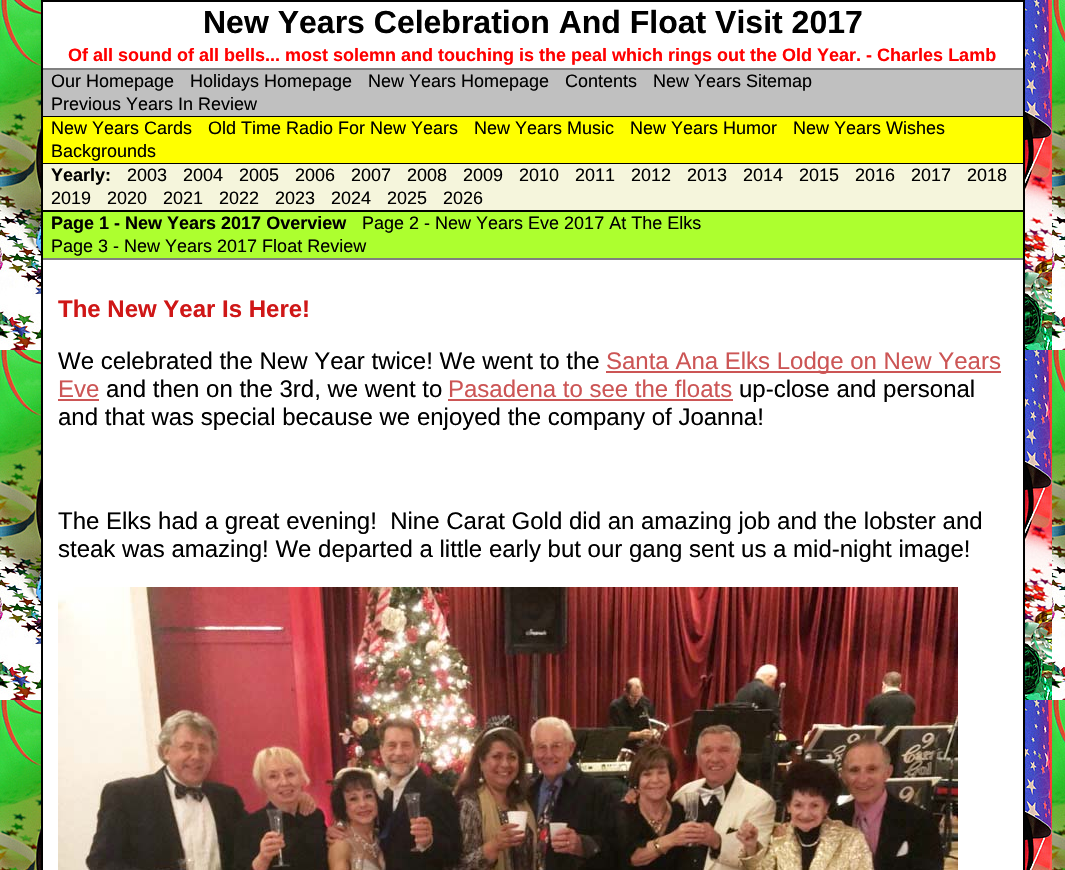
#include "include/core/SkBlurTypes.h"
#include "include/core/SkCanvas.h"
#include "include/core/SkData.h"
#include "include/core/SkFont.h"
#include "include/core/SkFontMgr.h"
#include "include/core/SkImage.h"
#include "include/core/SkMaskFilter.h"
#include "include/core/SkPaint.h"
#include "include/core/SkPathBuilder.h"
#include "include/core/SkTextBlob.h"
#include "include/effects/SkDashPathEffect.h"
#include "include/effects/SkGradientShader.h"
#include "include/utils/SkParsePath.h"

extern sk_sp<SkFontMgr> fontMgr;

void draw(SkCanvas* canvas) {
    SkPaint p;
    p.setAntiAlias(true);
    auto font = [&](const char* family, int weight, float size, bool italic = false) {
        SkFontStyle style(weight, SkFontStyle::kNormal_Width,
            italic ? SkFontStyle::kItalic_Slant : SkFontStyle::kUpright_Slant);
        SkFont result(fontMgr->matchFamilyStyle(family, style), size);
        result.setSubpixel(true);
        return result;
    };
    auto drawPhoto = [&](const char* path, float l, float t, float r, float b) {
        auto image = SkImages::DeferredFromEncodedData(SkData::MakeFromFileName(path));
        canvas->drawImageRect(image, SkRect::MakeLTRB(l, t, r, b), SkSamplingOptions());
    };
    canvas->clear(0xFFFFFFFF);
    drawPhoto("media/1.png", 0, 0, 1065, 870);
    p.setColor(0xFFFFFFFF);
    canvas->drawRect(SkRect::MakeLTRB(42, 1, 1024, 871), p);
    p.setStyle(SkPaint::kStroke_Style);
    p.setStrokeWidth(2);
    p.setColor(0xFF000000);
    canvas->drawRect(SkRect::MakeLTRB(42, 1, 1024, 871), p);
    auto font1 = font("Liberation Sans", 700, 32);
    p.setStyle(SkPaint::kFill_Style);
    canvas->drawString("New Years Celebration And Float Visit 2017", 203, 33, font1, p);
    auto font2 = font("Liberation Sans", 700, 18);
    p.setColor(0xFFFF0000);
    canvas->drawString("Of all sound of all bells... most solemn and touching is the peal which rings out the Old Year. - Charles Lamb", 68, 61, font2, p);
    {
        const struct { float l, t, r, b; SkColor color; } items[] = {
            {43, 70, 1023, 116, 0xFFC0C0C0},
            {43, 68, 1023, 70, 0xFF808080},
            {43, 258, 1023, 260, 0xFF808080},
        };
        for (auto [l, t, r, b, color] : items) {
            p.setColor(color);
            canvas->drawRect(SkRect::MakeLTRB(l, t, r, b), p);
        }
    }
    auto font3 = font("Liberation Sans", 400, 18);
    p.setColor(0xFF000000);
    {
        const struct { const char* s; float x, y; } items[] = {
            {"Our Homepage", 51, 87},
            {"Holidays Homepage", 190, 87},
            {"New Years Homepage", 368, 87},
            {"Contents", 565, 87},
            {"New Years Sitemap", 653, 87},
            {"Previous Years In Review", 51, 110},
        };
        for (auto [s, x, y] : items) {
            canvas->drawString(s, x, y, font3, p);
        }
    }
    canvas->drawRect(SkRect::MakeLTRB(43, 116, 1023, 117), p);
    p.setColor(0xFFFFFF00);
    canvas->drawRect(SkRect::MakeLTRB(43, 117, 1023, 163), p);
    p.setColor(0xFF000000);
    {
        const struct { const char* s; float x, y; } items[] = {
            {"New Years Cards", 51, 134},
            {"Old Time Radio For New Years", 208, 134},
            {"New Years Music", 474, 134},
            {"New Years Humor", 630, 134},
            {"New Years Wishes", 793, 134},
            {"Backgrounds", 51, 157},
        };
        for (auto [s, x, y] : items) {
            canvas->drawString(s, x, y, font3, p);
        }
    }
    canvas->drawRect(SkRect::MakeLTRB(43, 163, 1023, 164), p);
    p.setColor(0xFFF5F5DC);
    canvas->drawRect(SkRect::MakeLTRB(43, 164, 1023, 210), p);
    p.setColor(0xFF000000);
    canvas->drawString("Yearly:", 51, 181, font2, p);
    {
        const struct { const char* s; float x, y; } items[] = {
            {"2003", 127, 181},
            {"2004", 183, 181},
            {"2005", 239, 181},
            {"2006", 295, 181},
            {"2007", 351, 181},
            {"2008", 407, 181},
            {"2009", 463, 181},
            {"2010", 519, 181},
            {"2011", 575, 181},
            {"2012", 631, 181},
            {"2013", 687, 181},
            {"2014", 743, 181},
            {"2015", 799, 181},
            {"2016", 855, 181},
            {"2017", 911, 181},
            {"2018", 967, 181},
            {"2019", 51, 204},
            {"2020", 107, 204},
            {"2021", 163, 204},
            {"2022", 219, 204},
            {"2023", 275, 204},
            {"2024", 331, 204},
            {"2025", 387, 204},
            {"2026", 443, 204},
        };
        for (auto [s, x, y] : items) {
            canvas->drawString(s, x, y, font3, p);
        }
    }
    canvas->drawRect(SkRect::MakeLTRB(43, 210, 1023, 212), p);
    p.setColor(0xFFADFF2F);
    canvas->drawRect(SkRect::MakeLTRB(43, 212, 1023, 258), p);
    p.setColor(0xFF000000);
    canvas->drawString("Page 1 - New Years 2017 Overview", 51, 229, font2, p);
    canvas->drawString("Page 2 - New Years Eve 2017 At The Elks", 362, 229, font3, p);
    canvas->drawString("Page 3 - New Years 2017 Float Review", 51, 252, font3, p);
    auto font4 = font("Liberation Sans", 700, 24);
    p.setColor(0xFFCF1717);
    canvas->drawString("The New Year Is Here!", 58, 317, font4, p);
    auto font5 = font("Liberation Sans", 400, 24);
    p.setColor(0xFF000000);
    canvas->drawString("We celebrated the New Year twice! We went to the", 58, 369, font5, p);
    p.setColor(0xFFCC5555);
    canvas->drawRect(SkRect::MakeLTRB(606, 371, 1001, 373), p);
    canvas->drawString("Santa Ana Elks Lodge on New Years", 606, 369, font5, p);
    canvas->drawString("Eve", 58, 397, font5, p);
    canvas->drawRect(SkRect::MakeLTRB(58, 399, 99, 401), p);
    p.setColor(0xFF000000);
    canvas->drawString("and then on the 3rd, we went to", 106, 397, font5, p);
    p.setColor(0xFFCC5555);
    canvas->drawString("Pasadena to see the floats", 448, 397, font5, p);
    canvas->drawRect(SkRect::MakeLTRB(448, 399, 733, 401), p);
    p.setColor(0xFF000000);
    {
        const struct { const char* s; float x, y; } items[] = {
            {"up-close and personal", 739, 397},
            {"and that was special because we enjoyed the company of Joanna!", 58, 425},
            {"The Elks had a great evening!  Nine Carat Gold did an amazing job and the lobster and", 58, 529},
            {"steak was amazing! We departed a little early but our gang sent us a mid-night image!", 58, 557},
        };
        for (auto [s, x, y] : items) {
            canvas->drawString(s, x, y, font5, p);
        }
    }
    drawPhoto("media/2.png", 58, 587, 958, 870);
}
